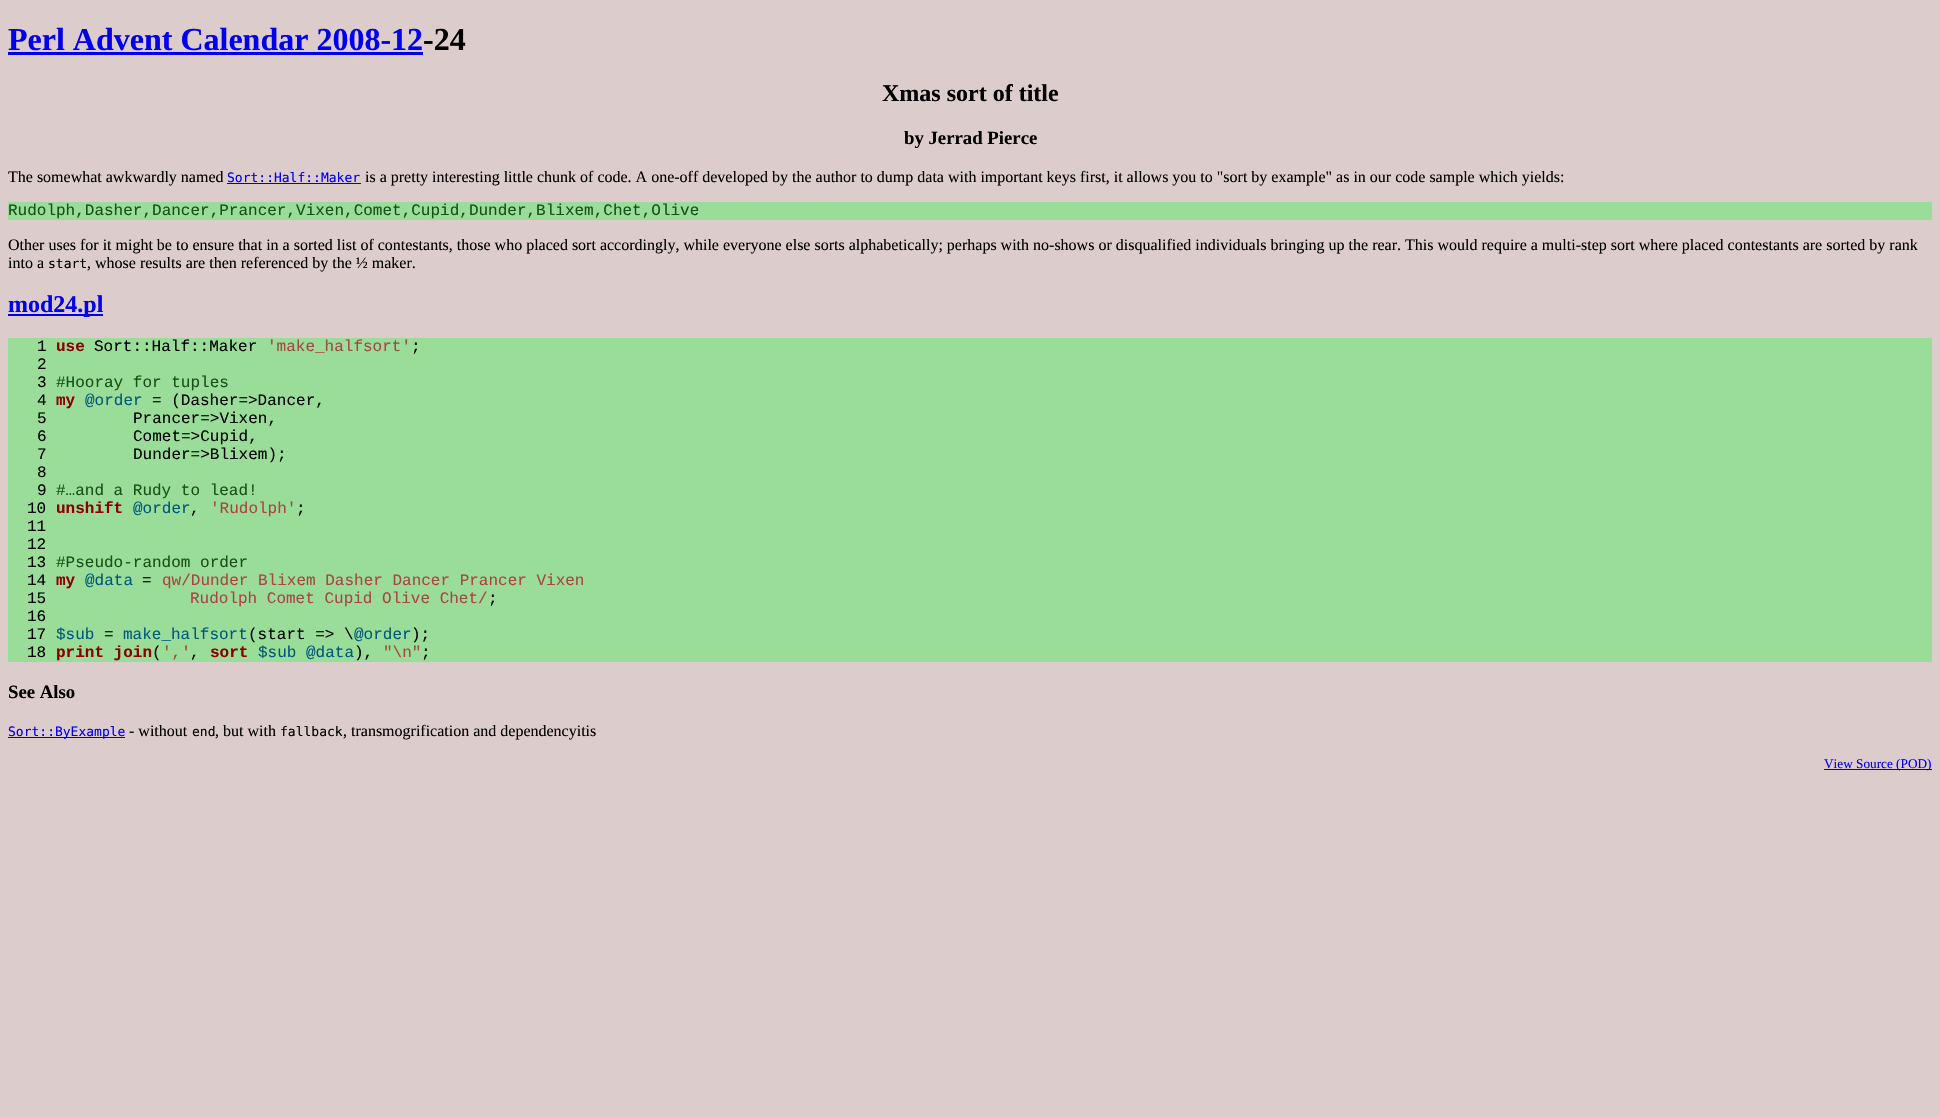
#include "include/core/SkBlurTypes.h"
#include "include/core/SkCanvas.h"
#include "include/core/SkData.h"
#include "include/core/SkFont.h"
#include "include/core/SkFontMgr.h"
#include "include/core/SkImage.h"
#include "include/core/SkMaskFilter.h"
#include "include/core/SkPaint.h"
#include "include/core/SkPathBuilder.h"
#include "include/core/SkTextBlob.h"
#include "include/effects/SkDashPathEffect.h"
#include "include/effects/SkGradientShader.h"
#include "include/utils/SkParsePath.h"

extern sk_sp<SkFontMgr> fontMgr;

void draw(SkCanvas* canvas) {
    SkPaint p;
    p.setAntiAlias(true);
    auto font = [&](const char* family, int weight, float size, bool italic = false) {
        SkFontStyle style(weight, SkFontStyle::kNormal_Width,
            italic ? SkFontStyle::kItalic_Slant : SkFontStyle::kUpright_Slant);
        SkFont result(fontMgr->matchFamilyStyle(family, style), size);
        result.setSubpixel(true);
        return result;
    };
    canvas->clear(0xFFDDCCCC);
    auto font1 = font("Liberation Serif", 700, 32);
    p.setColor(0xFF0000EE);
    canvas->drawString("Perl Advent Calendar 2008-12", 8, 50, font1, p);
    canvas->drawRect(SkRect::MakeLTRB(8, 52, 423, 55), p);
    p.setColor(0xFF000000);
    canvas->drawString("-24", 423, 50, font1, p);
    auto font2 = font("Liberation Serif", 700, 24);
    canvas->drawString("Xmas sort of title", 882, 101, font2, p);
    auto font3 = font("Liberation Serif", 700, 18.75f);
    canvas->drawString("by Jerrad Pierce", 904, 144, font3, p);
    auto font4 = font("Liberation Serif", 400, 16);
    canvas->drawString("The somewhat awkwardly named", 8, 182, font4, p);
    auto font5 = font("DejaVu Sans Mono", 400, 13);
    p.setColor(0xFF0000EE);
    canvas->drawString("Sort::Half::Maker", 227, 182, font5, p);
    canvas->drawRect(SkRect::MakeLTRB(227, 183, 361, 184), p);
    p.setColor(0xFF000000);
    canvas->drawString("is a pretty interesting little chunk of code. A one-off developed by the author to dump data with important keys first, it allows you to \"sort by example\" as in our code sample which yields:", 365, 182, font4, p);
    p.setColor(0xFF99DD99);
    canvas->drawRect(SkRect::MakeLTRB(8, 202, 1932, 220), p);
    auto font6 = font("Liberation Mono", 400, 16);
    p.setColor(0xFF185018);
    canvas->drawString("Rudolph,Dasher,Dancer,Prancer,Vixen,Comet,Cupid,Dunder,Blixem,Chet,Olive", 8, 215, font6, p);
    p.setColor(0xFF000000);
    canvas->drawString("Other uses for it might be to ensure that in a sorted list of contestants, those who placed sort accordingly, while everyone else sorts alphabetically; perhaps with no-shows or disqualified individuals bringing up the rear. This would require a multi-step sort where placed contestants are sorted by rank", 8, 250, font4, p);
    canvas->drawString("into a", 8, 268, font4, p);
    canvas->drawString("start", 48, 268, font5, p);
    canvas->drawString(", whose results are then referenced by the ½ maker.", 87, 268, font4, p);
    p.setColor(0xFF0000EE);
    canvas->drawRect(SkRect::MakeLTRB(8, 314, 103, 316), p);
    canvas->drawString("mod24.pl", 8, 312, font2, p);
    p.setColor(0xFF99DD99);
    canvas->drawRect(SkRect::MakeLTRB(8, 338, 1932, 662), p);
    p.setColor(0xFF000000);
    canvas->drawString("1", 37, 351, font6, p);
    auto font7 = font("Liberation Mono", 700, 16);
    p.setColor(0xFF8B0000);
    canvas->drawString("use", 56, 351, font7, p);
    p.setColor(0xFF000000);
    canvas->drawString("Sort::Half::Maker", 94, 351, font6, p);
    p.setColor(0xFFAA4444);
    canvas->drawString("'make_halfsort'", 267, 351, font6, p);
    p.setColor(0xFF000000);
    {
        const struct { const char* s; float x, y; } items[] = {
            {";", 411, 351},
            {"2", 37, 369},
            {"3", 37, 387},
        };
        for (auto [s, x, y] : items) {
            canvas->drawString(s, x, y, font6, p);
        }
    }
    p.setColor(0xFF185018);
    canvas->drawString("#Hooray for tuples", 56, 387, font6, p);
    p.setColor(0xFF000000);
    canvas->drawString("4", 37, 405, font6, p);
    p.setColor(0xFF8B0000);
    canvas->drawString("my", 56, 405, font7, p);
    p.setColor(0xFF00587B);
    canvas->drawString("@order", 85, 405, font6, p);
    p.setColor(0xFF000000);
    {
        const struct { const char* s; float x, y; } items[] = {
            {"= (Dasher=>Dancer,", 152, 405},
            {"5", 37, 423},
            {"Prancer=>Vixen,", 133, 423},
            {"6", 37, 441},
            {"Comet=>Cupid,", 133, 441},
            {"7", 37, 459},
            {"Dunder=>Blixem);", 133, 459},
            {"8", 37, 477},
            {"9", 37, 495},
        };
        for (auto [s, x, y] : items) {
            canvas->drawString(s, x, y, font6, p);
        }
    }
    p.setColor(0xFF185018);
    canvas->drawString("#…and a Rudy to lead!", 56, 495, font6, p);
    p.setColor(0xFF000000);
    canvas->drawString("10", 27, 513, font6, p);
    p.setColor(0xFF8B0000);
    canvas->drawString("unshift", 56, 513, font7, p);
    p.setColor(0xFF00587B);
    canvas->drawString("@order", 133, 513, font6, p);
    p.setColor(0xFF000000);
    canvas->drawString(",", 190, 513, font6, p);
    p.setColor(0xFFAA4444);
    canvas->drawString("'Rudolph'", 210, 513, font6, p);
    p.setColor(0xFF000000);
    {
        const struct { const char* s; float x, y; } items[] = {
            {";", 296, 513},
            {"11", 27, 531},
            {"12", 27, 549},
            {"13", 27, 567},
        };
        for (auto [s, x, y] : items) {
            canvas->drawString(s, x, y, font6, p);
        }
    }
    p.setColor(0xFF185018);
    canvas->drawString("#Pseudo-random order", 56, 567, font6, p);
    p.setColor(0xFF000000);
    canvas->drawString("14", 27, 585, font6, p);
    p.setColor(0xFF8B0000);
    canvas->drawString("my", 56, 585, font7, p);
    p.setColor(0xFF00587B);
    canvas->drawString("@data", 85, 585, font6, p);
    p.setColor(0xFF000000);
    canvas->drawString("=", 142, 585, font6, p);
    p.setColor(0xFFAA4444);
    canvas->drawString("qw/Dunder Blixem Dasher Dancer Prancer Vixen", 162, 585, font6, p);
    p.setColor(0xFF000000);
    canvas->drawString("15", 27, 603, font6, p);
    p.setColor(0xFFAA4444);
    canvas->drawString("Rudolph Comet Cupid Olive Chet/", 190, 603, font6, p);
    p.setColor(0xFF000000);
    {
        const struct { const char* s; float x, y; } items[] = {
            {";", 488, 603},
            {"16", 27, 621},
            {"17", 27, 639},
        };
        for (auto [s, x, y] : items) {
            canvas->drawString(s, x, y, font6, p);
        }
    }
    p.setColor(0xFF00587B);
    canvas->drawString("$sub", 56, 639, font6, p);
    p.setColor(0xFF000000);
    canvas->drawString("=", 104, 639, font6, p);
    p.setColor(0xFF00587B);
    canvas->drawString("make_halfsort", 123, 639, font6, p);
    p.setColor(0xFF000000);
    canvas->drawString("(start => \\", 248, 639, font6, p);
    p.setColor(0xFF00587B);
    canvas->drawString("@order", 354, 639, font6, p);
    p.setColor(0xFF000000);
    canvas->drawString(");", 411, 639, font6, p);
    canvas->drawString("18", 27, 657, font6, p);
    p.setColor(0xFF8B0000);
    canvas->drawString("print join", 56, 657, font7, p);
    p.setColor(0xFF000000);
    canvas->drawString("(", 152, 657, font6, p);
    p.setColor(0xFFAA4444);
    canvas->drawString("','", 162, 657, font6, p);
    p.setColor(0xFF000000);
    canvas->drawString(",", 190, 657, font6, p);
    p.setColor(0xFF8B0000);
    canvas->drawString("sort", 210, 657, font7, p);
    p.setColor(0xFF00587B);
    canvas->drawString("$sub @data", 258, 657, font6, p);
    p.setColor(0xFF000000);
    canvas->drawString("),", 354, 657, font6, p);
    p.setColor(0xFFAA4444);
    canvas->drawString("\"\\n\"", 383, 657, font6, p);
    p.setColor(0xFF000000);
    canvas->drawString(";", 421, 657, font6, p);
    canvas->drawString("See Also", 8, 698, font3, p);
    p.setColor(0xFF0000EE);
    canvas->drawRect(SkRect::MakeLTRB(8, 737, 125, 738), p);
    canvas->drawString("Sort::ByExample", 8, 736, font5, p);
    p.setColor(0xFF000000);
    canvas->drawString("- without", 129, 736, font4, p);
    canvas->drawString("end", 192, 736, font5, p);
    canvas->drawString(", but with", 215, 736, font4, p);
    canvas->drawString("fallback", 280, 736, font5, p);
    canvas->drawString(", transmogrification and dependencyitis", 343, 736, font4, p);
    p.setColor(0xFF0000EE);
    canvas->drawRect(SkRect::MakeLTRB(1824, 769, 1932, 770), p);
    auto font8 = font("Liberation Serif", 400, 13.25f);
    canvas->drawString("View Source (POD)", 1824, 768, font8, p);
}
